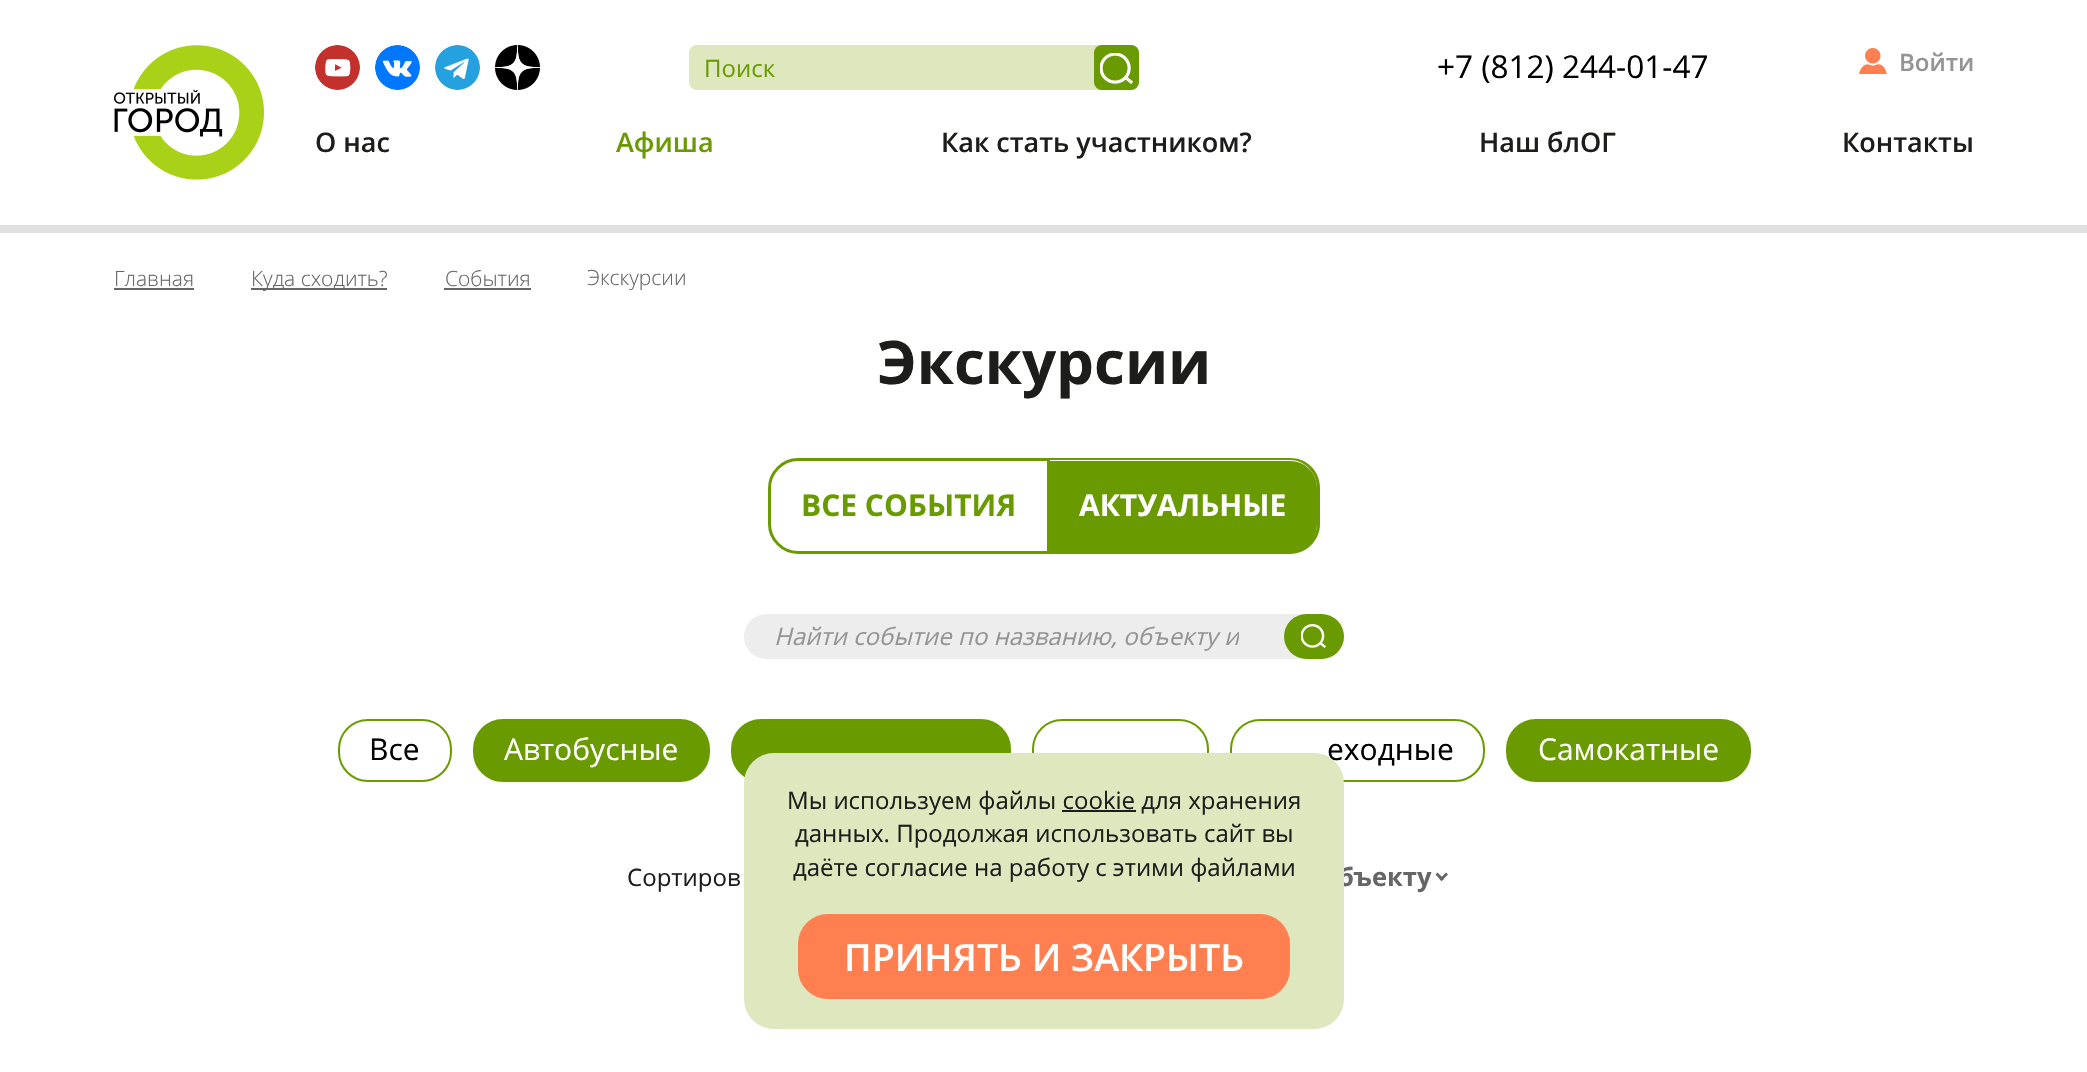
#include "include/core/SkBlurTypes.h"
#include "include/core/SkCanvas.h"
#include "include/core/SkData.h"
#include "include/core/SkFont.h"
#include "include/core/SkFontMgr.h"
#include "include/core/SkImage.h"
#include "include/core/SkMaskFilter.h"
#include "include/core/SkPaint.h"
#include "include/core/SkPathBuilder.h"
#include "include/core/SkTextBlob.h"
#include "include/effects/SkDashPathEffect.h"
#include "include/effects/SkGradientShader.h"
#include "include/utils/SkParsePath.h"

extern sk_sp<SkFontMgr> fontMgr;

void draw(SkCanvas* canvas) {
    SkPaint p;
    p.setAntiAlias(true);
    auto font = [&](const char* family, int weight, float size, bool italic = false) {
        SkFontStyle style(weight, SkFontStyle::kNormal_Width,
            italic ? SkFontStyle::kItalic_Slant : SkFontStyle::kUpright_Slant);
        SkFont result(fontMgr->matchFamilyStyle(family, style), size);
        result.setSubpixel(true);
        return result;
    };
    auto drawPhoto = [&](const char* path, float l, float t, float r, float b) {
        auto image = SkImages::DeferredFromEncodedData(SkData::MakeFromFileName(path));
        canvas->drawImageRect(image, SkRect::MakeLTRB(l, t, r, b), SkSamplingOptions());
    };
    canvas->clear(0xFFFFFFFF);
    drawPhoto("media/1.png", 114, 45, 264, 180);
    drawPhoto("media/2.png", 315, 45, 360, 90);
    drawPhoto("media/3.png", 375, 45, 420, 90);
    drawPhoto("media/4.png", 435, 45, 480, 90);
    drawPhoto("media/5.png", 495, 45, 540, 90);
    p.setColor(0xFFDEE7BE);
    canvas->drawRoundRect(SkRect::MakeLTRB(689, 45, 1139, 90), 8, 8, p);
    auto font1 = font("Open Sans", 400, 24);
    p.setColor(0xFF699B00);
    canvas->drawString("Поиск", 704, 77, font1, p);
    canvas->drawRoundRect(SkRect::MakeLTRB(1094, 45, 1139, 90), 8, 8, p);
    drawPhoto("media/6.png", 1100, 53, 1133, 84);
    auto font2 = font("Open Sans", 400, 31.5f);
    p.setColor(0xFF000000);
    canvas->drawString("+7 (812) 244-01-47", 1437, 78, font2, p);
    drawPhoto("media/7.png", 1859, 48, 1887, 74);
    auto font3 = font("Open Sans", 600, 24);
    p.setColor(0xFF949494);
    canvas->drawString("Войти", 1899, 71, font3, p);
    auto font4 = font("Open Sans", 600, 27);
    p.setColor(0xFF1D1D1B);
    canvas->drawString("О нас", 315, 152, font4, p);
    p.setColor(0xFF699B00);
    canvas->drawString("Афиша", 616, 152, font4, p);
    p.setColor(0xFF1D1D1B);
    {
        const struct { const char* s; float x, y; } items[] = {
            {"Как стать участником?", 941, 152},
            {"Наш блОГ", 1479, 152},
            {"Контакты", 1842, 152},
        };
        for (auto [s, x, y] : items) {
            canvas->drawString(s, x, y, font4, p);
        }
    }
    p.setColor(0xFFE0E0E0);
    canvas->drawRect(SkRect::MakeLTRB(0, 225, 2087, 233), p);
    auto font5 = font("Open Sans", 300, 21);
    p.setColor(0xFF666666);
    canvas->drawString("Главная", 114, 286, font5, p);
    canvas->drawRect(SkRect::MakeLTRB(114, 288, 194, 290), p);
    canvas->drawRect(SkRect::MakeLTRB(251, 288, 387, 290), p);
    canvas->drawString("Куда сходить?", 251, 286, font5, p);
    canvas->drawString("События", 445, 286, font5, p);
    canvas->drawRect(SkRect::MakeLTRB(444, 288, 531, 290), p);
    canvas->drawString("Экскурсии", 587, 285, font5, p);
    auto font6 = font("Open Sans", 700, 60);
    p.setColor(0xFF1D1D1B);
    canvas->drawString("Экскурсии", 877, 384, font6, p);
    p.setStyle(SkPaint::kStroke_Style);
    p.setStrokeWidth(3);
    p.setColor(0xFF699B00);
    canvas->drawPath(SkPathBuilder().moveTo(798, 459.5f).lineTo(1048.5f, 459.5f).lineTo(1048.5f, 552.5f).lineTo(798, 552.5f).cubicTo(782.5f, 552.5f, 769.5f, 539.5f, 769.5f, 524).lineTo(769.5f, 488).cubicTo(769.5f, 472.5f, 782.5f, 459.5f, 798, 459.5f).close().detach(), p);
    auto font7 = font("Open Sans", 700, 30);
    p.setStyle(SkPaint::kFill_Style);
    canvas->drawString("ВСЕ СОБЫТИЯ", 801, 516, font7, p);
    canvas->drawPath(SkPathBuilder().moveTo(1050, 461).lineTo(1290, 461).cubicTo(1305, 461, 1317, 473, 1317, 488).lineTo(1317, 524).cubicTo(1317, 539, 1305, 551, 1290, 551).lineTo(1050, 551).close().detach(), p);
    canvas->drawPath(SkPathBuilder(SkPathFillType::kEvenOdd).moveTo(1050, 458).lineTo(1290, 458).cubicTo(1307, 458, 1320, 471, 1320, 488).lineTo(1320, 524).cubicTo(1320, 540, 1307, 554, 1290, 554).lineTo(1050, 554).close().moveTo(1050, 460).lineTo(1290, 460).cubicTo(1305, 460, 1317, 473, 1317, 488).lineTo(1317, 524).cubicTo(1317, 538, 1305, 550, 1290, 550).lineTo(1050, 550).close().detach(), p);
    p.setColor(0xFFFFFFFF);
    canvas->drawString("АКТУАЛЬНЫЕ", 1079, 516, font7, p);
    p.setColor(0xFFEDEDED);
    canvas->drawRoundRect(SkRect::MakeLTRB(744, 614, 1344, 659), 22.5f, 22.5f, p);
    canvas->save();
    canvas->clipRect(SkRect::MakeLTRB(774, 620, 1239, 653));
    auto font8 = font("Open Sans", 400, 24, true);
    p.setColor(0xFF949494);
    canvas->drawString("Найти событие по названию, объекту и", 774, 645, font8, p);
    canvas->restore();
    p.setColor(0xFF699B00);
    canvas->drawRoundRect(SkRect::MakeLTRB(1284, 614, 1344, 659), 22.5f, 22.5f, p);
    drawPhoto("media/8.png", 1301, 624, 1326, 648);
    p.setStyle(SkPaint::kStroke_Style);
    p.setStrokeWidth(2);
    canvas->drawRoundRect(SkRect::MakeLTRB(339, 720, 451, 781), 29, 29, p);
    auto font9 = font("Open Sans", 400, 30);
    p.setStyle(SkPaint::kFill_Style);
    p.setColor(0xFF000000);
    canvas->drawString("Все", 369, 760, font9, p);
    p.setColor(0xFF699B00);
    canvas->drawRoundRect(SkRect::MakeLTRB(474, 720, 709, 781), 29, 29, p);
    p.setStyle(SkPaint::kStroke_Style);
    canvas->drawRoundRect(SkRect::MakeLTRB(474, 720, 709, 781), 29, 29, p);
    p.setStyle(SkPaint::kFill_Style);
    p.setColor(0xFFFFFFFF);
    canvas->drawString("Автобусные", 504, 760, font9, p);
    p.setColor(0xFF699B00);
    canvas->drawRoundRect(SkRect::MakeLTRB(732, 720, 1010, 781), 29, 29, p);
    p.setStyle(SkPaint::kStroke_Style);
    canvas->drawRoundRect(SkRect::MakeLTRB(732, 720, 1010, 781), 29, 29, p);
    canvas->drawRoundRect(SkRect::MakeLTRB(1033, 720, 1208, 781), 29, 29, p);
    canvas->drawRoundRect(SkRect::MakeLTRB(1231, 720, 1484, 781), 29, 29, p);
    p.setStyle(SkPaint::kFill_Style);
    p.setColor(0xFF000000);
    canvas->drawString("еходные", 1327, 760, font9, p);
    p.setColor(0xFF699B00);
    canvas->drawRoundRect(SkRect::MakeLTRB(1507, 720, 1750, 781), 29, 29, p);
    p.setStyle(SkPaint::kStroke_Style);
    canvas->drawRoundRect(SkRect::MakeLTRB(1507, 720, 1750, 781), 29, 29, p);
    p.setStyle(SkPaint::kFill_Style);
    p.setColor(0xFFFFFFFF);
    canvas->drawString("Самокатные", 1538, 760, font9, p);
    p.setColor(0xFF1D1D1B);
    canvas->drawString("Сортиров", 627, 886, font1, p);
    auto font10 = font("Open Sans", 700, 25.5f);
    p.setColor(0xFF666666);
    canvas->drawString("бъекту", 1338, 886, font10, p);
    canvas->drawPath(SkPathBuilder().moveTo(1446, 872.5f).lineTo(1448, 874.5f).lineTo(1441.5f, 881).lineTo(1439.5f, 879).close().detach(), p);
    canvas->drawPath(SkPathBuilder().moveTo(1437.5f, 872.5f).lineTo(1444, 879).lineTo(1441.5f, 881).lineTo(1435.5f, 874.5f).close().detach(), p);
    p.setColor(0xFFDEE7BE);
    canvas->drawRoundRect(SkRect::MakeLTRB(744, 753, 1344, 1029), 30, 30, p);
    p.setColor(0xFF1D1D1B);
    canvas->drawString("Мы используем файлы cookie для хранения", 787, 809, font1, p);
    canvas->drawRect(SkRect::MakeLTRB(1062, 810, 1136, 812), p);
    canvas->drawString("данных. Продолжая использовать сайт вы", 795, 842, font1, p);
    canvas->drawString("даёте согласие на работу с этими файлами", 793, 876, font1, p);
    p.setColor(0xFFFF7F50);
    canvas->drawRoundRect(SkRect::MakeLTRB(799, 915, 1289, 998), 29, 29, p);
    p.setStyle(SkPaint::kStroke_Style);
    canvas->drawRoundRect(SkRect::MakeLTRB(799, 915, 1289, 998), 29, 29, p);
    auto font11 = font("Open Sans", 600, 37.5f);
    p.setStyle(SkPaint::kFill_Style);
    p.setColor(0xFFFFFFFF);
    canvas->drawString("ПРИНЯТЬ И ЗАКРЫТЬ", 844, 971, font11, p);
}
